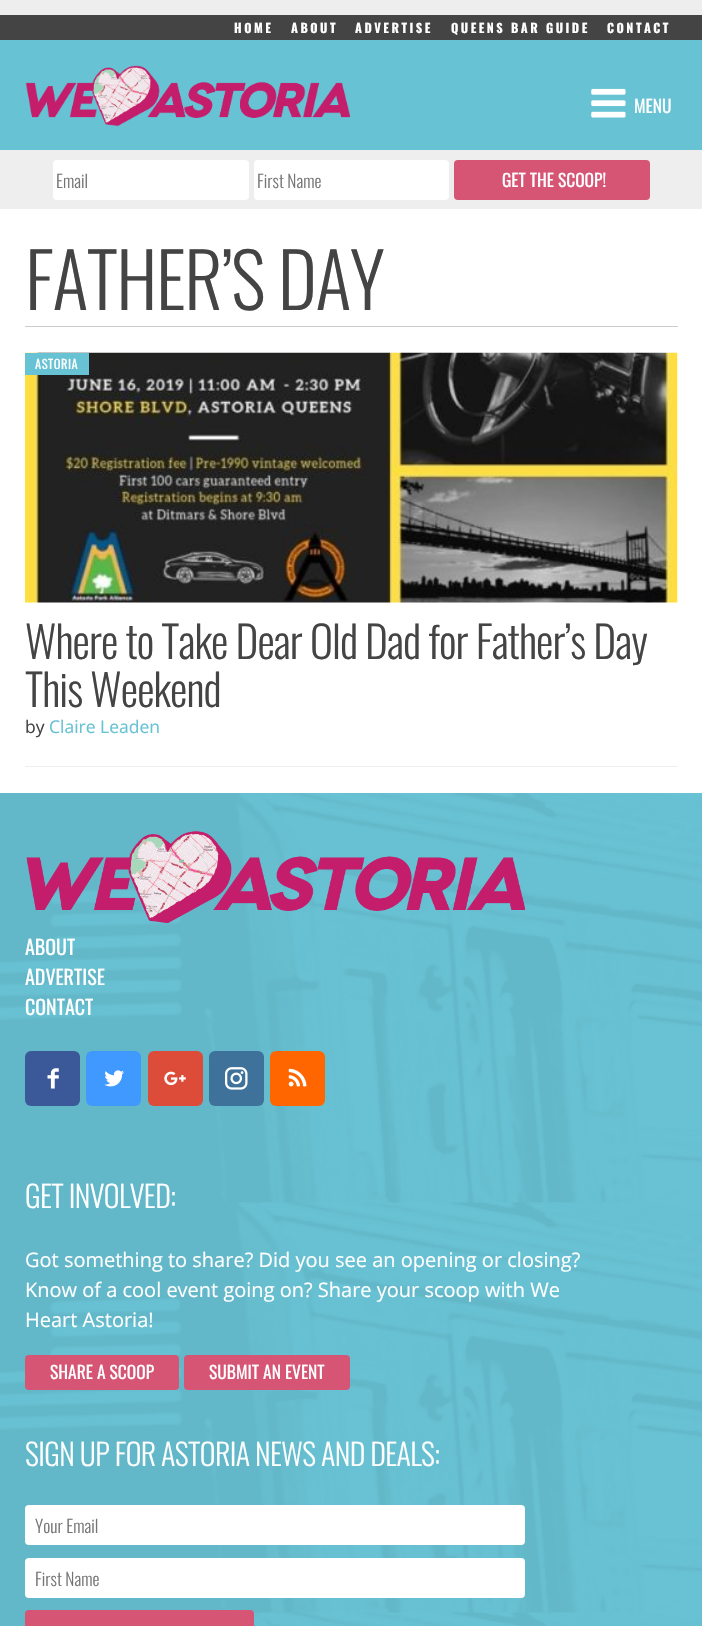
#include "include/core/SkBlurTypes.h"
#include "include/core/SkCanvas.h"
#include "include/core/SkData.h"
#include "include/core/SkFont.h"
#include "include/core/SkFontMgr.h"
#include "include/core/SkImage.h"
#include "include/core/SkMaskFilter.h"
#include "include/core/SkPaint.h"
#include "include/core/SkPathBuilder.h"
#include "include/core/SkTextBlob.h"
#include "include/effects/SkDashPathEffect.h"
#include "include/effects/SkGradientShader.h"
#include "include/utils/SkParsePath.h"

extern sk_sp<SkFontMgr> fontMgr;

void draw(SkCanvas* canvas) {
    SkPaint p;
    p.setAntiAlias(true);
    auto font = [&](const char* family, int weight, float size, bool italic = false) {
        SkFontStyle style(weight, SkFontStyle::kNormal_Width,
            italic ? SkFontStyle::kItalic_Slant : SkFontStyle::kUpright_Slant);
        SkFont result(fontMgr->matchFamilyStyle(family, style), size);
        result.setSubpixel(true);
        return result;
    };
    auto drawTracked = [&](const char* s, float x, float y, const SkFont& font, const SkPaint& ink, float letter, float word) {
        std::vector<SkGlyphID> glyphs(font.countText(s, strlen(s), SkTextEncoding::kUTF8));
        std::vector<float> xs(glyphs.size());
        font.textToGlyphs(s, strlen(s), SkTextEncoding::kUTF8, glyphs);
        font.getXPos(glyphs, xs, x);
        float extra = 0;
        for (size_t i = 0; i < glyphs.size(); i++) {
            xs[i] += extra;
            extra += letter + word * (glyphs[i] == font.unicharToGlyph(' '));
        }
        canvas->drawTextBlob(SkTextBlob::MakeFromPosHGlyphs(glyphs, xs, y, font), 0, 0, ink);
    };
    auto drawPhoto = [&](const char* path, float l, float t, float r, float b) {
        auto image = SkImages::DeferredFromEncodedData(SkData::MakeFromFileName(path));
        canvas->drawImageRect(image, SkRect::MakeLTRB(l, t, r, b), SkSamplingOptions());
    };
    canvas->clear(0xFFFFFFFF);
    {
        const struct { float l, t, r, b; SkColor color; } items[] = {
            {0, 40, 702, 150, 0xFF67C2D4},
            {0, 0, 702, 15, 0xFFEEEEEE},
            {0, 15, 702, 40, 0xFF444444},
        };
        for (auto [l, t, r, b, color] : items) {
            p.setColor(color);
            canvas->drawRect(SkRect::MakeLTRB(l, t, r, b), p);
        }
    }
    auto font1 = font("Oswald", 700, 12.5f);
    p.setColor(0xFFFFFFFF);
    {
        const struct { const char* s; float x, y; } items[] = {
            {"HOME", 234, 33},
            {"ABOUT", 291, 33},
            {"ADVERTISE", 355, 33},
            {"QUEENS BAR GUIDE", 451, 33},
            {"CONTACT", 607, 33},
        };
        for (auto [s, x, y] : items) {
            drawTracked(s, x, y, font1, p, 2.5f, 0);
        }
    }
    drawPhoto("media/1.png", 25, 65, 350, 127);
    drawPhoto("media/2.png", 591, 88, 626, 118);
    auto font2 = font("Oswald", 400, 17.5f);
    canvas->drawString("MENU", 634, 113, font2, p);
    p.setColor(0xFFEEEEEE);
    canvas->drawRect(SkRect::MakeLTRB(0, 150, 702, 209), p);
    p.setColor(0xFFFFFFFF);
    canvas->drawRoundRect(SkRect::MakeLTRB(53, 160, 249, 200), 4, 4, p);
    auto font3 = font("Oswald", 300, 17.5f);
    p.setColor(0xFF757575);
    canvas->drawString("Email", 56, 188, font3, p);
    p.setColor(0xFFFFFFFF);
    canvas->drawRoundRect(SkRect::MakeLTRB(254, 160, 449, 200), 4, 4, p);
    p.setColor(0xFF757575);
    canvas->drawString("First Name", 257, 188, font3, p);
    p.setColor(0xFFD65574);
    canvas->drawRoundRect(SkRect::MakeLTRB(454, 160, 650, 200), 4, 4, p);
    p.setColor(0xFFFFFFFF);
    canvas->drawString("GET THE SCOOP!", 502, 187, font2, p);
    p.setColor(0xFFCCCCCC);
    canvas->drawRect(SkRect::MakeLTRB(25, 326, 678, 327), p);
    auto font4 = font("Oswald", 300, 75);
    p.setColor(0xFF444444);
    drawTracked("FATHER’S DAY", 25, 310, font4, p, -1.5f, 0);
    p.setColor(0xFFEEEEEE);
    canvas->drawRect(SkRect::MakeLTRB(25, 766, 678, 767), p);
    drawPhoto("media/3.png", 25, 352, 678, 603);
    p.setColor(0xFF67C2D4);
    canvas->drawRect(SkRect::MakeLTRB(25, 353, 89, 375), p);
    auto font5 = font("Oswald", 400, 12.5f);
    p.setColor(0xFFFFFFFF);
    drawTracked("ASTORIA", 35, 369, font5, p, 0.5f, 0);
    auto font6 = font("Oswald", 300, 43.75f);
    p.setColor(0xFF444444);
    drawTracked("Where to Take Dear Old Dad for Father’s Day", 25, 659, font6, p, -0.9f, 0);
    drawTracked("This Weekend", 25, 707, font6, p, -0.9f, 0);
    auto font7 = font("Open Sans", 400, 17.5f);
    canvas->drawString("by", 25, 733, font7, p);
    p.setColor(0xFF67C2D4);
    canvas->drawString("Claire Leaden", 49, 733, font7, p);
    canvas->drawRect(SkRect::MakeLTRB(0, 793, 702, 1626), p);
    drawPhoto("media/4.png", 0, 793, 702, 1626);
    drawPhoto("media/5.png", 26, 831, 525, 923);
    auto font8 = font("Oswald", 400, 20);
    p.setColor(0xFFFFFFFF);
    {
        const struct { const char* s; float x, y; } items[] = {
            {"ABOUT", 25, 955},
            {"ADVERTISE", 25, 985},
            {"CONTACT", 25, 1015},
        };
        for (auto [s, x, y] : items) {
            canvas->drawString(s, x, y, font8, p);
        }
    }
    p.setColor(0xFF3B5998);
    canvas->drawRoundRect(SkRect::MakeLTRB(25, 1051, 80, 1106), 6, 6, p);
    drawPhoto("media/6.png", 47, 1068, 59, 1089);
    p.setColor(0xFF4099FF);
    canvas->drawRoundRect(SkRect::MakeLTRB(86, 1051, 141, 1106), 6, 6, p);
    drawPhoto("media/7.png", 104, 1070, 124, 1087);
    p.setColor(0xFFDD4B39);
    canvas->drawRoundRect(SkRect::MakeLTRB(148, 1051, 203, 1106), 6, 6, p);
    drawPhoto("media/8.png", 164, 1071, 186, 1086);
    p.setColor(0xFF3F729B);
    canvas->drawRoundRect(SkRect::MakeLTRB(209, 1051, 264, 1106), 6, 6, p);
    drawPhoto("media/9.png", 225, 1067, 248, 1090);
    p.setColor(0xFFFF6600);
    canvas->drawRoundRect(SkRect::MakeLTRB(270, 1051, 325, 1106), 6, 6, p);
    drawPhoto("media/10.png", 288, 1068, 307, 1087);
    auto font9 = font("Oswald", 300, 30);
    p.setColor(0xFFFFFFFF);
    drawTracked("GET INVOLVED:", 25, 1208, font9, p, -0.6f, 0);
    auto font10 = font("Open Sans", 400, 20);
    {
        const struct { const char* s; float x, y; } items[] = {
            {"Got something to share? Did you see an opening or closing?", 25, 1267},
            {"Know of a cool event going on? Share your scoop with We", 25, 1297},
            {"Heart Astoria!", 25, 1327},
        };
        for (auto [s, x, y] : items) {
            canvas->drawString(s, x, y, font10, p);
        }
    }
    p.setColor(0xFFD65574);
    canvas->drawRoundRect(SkRect::MakeLTRB(25, 1355, 179, 1390), 4, 4, p);
    p.setColor(0xFFFFFFFF);
    canvas->drawString("SHARE A SCOOP", 50, 1379, font2, p);
    p.setColor(0xFFD65574);
    canvas->drawRoundRect(SkRect::MakeLTRB(184, 1355, 350, 1390), 4, 4, p);
    p.setColor(0xFFFFFFFF);
    canvas->drawString("SUBMIT AN EVENT", 209, 1379, font2, p);
    drawTracked("SIGN UP FOR ASTORIA NEWS AND DEALS:", 25, 1466, font9, p, -0.6f, 0);
    canvas->drawRoundRect(SkRect::MakeLTRB(25, 1505, 525, 1545), 4, 4, p);
    p.setColor(0xFF757575);
    canvas->drawString("Your Email", 35, 1533, font3, p);
    p.setColor(0xFFFFFFFF);
    canvas->drawRoundRect(SkRect::MakeLTRB(25, 1558, 525, 1598), 4, 4, p);
    p.setColor(0xFF757575);
    canvas->drawString("First Name", 35, 1586, font3, p);
    p.setColor(0xFFD65574);
    canvas->drawRoundRect(SkRect::MakeLTRB(25, 1610, 254, 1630), 4, 4, p);
}
